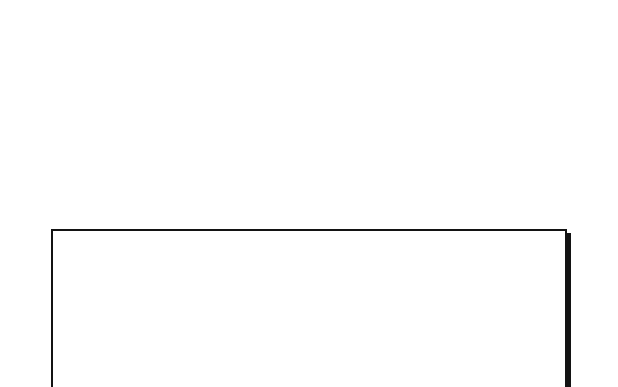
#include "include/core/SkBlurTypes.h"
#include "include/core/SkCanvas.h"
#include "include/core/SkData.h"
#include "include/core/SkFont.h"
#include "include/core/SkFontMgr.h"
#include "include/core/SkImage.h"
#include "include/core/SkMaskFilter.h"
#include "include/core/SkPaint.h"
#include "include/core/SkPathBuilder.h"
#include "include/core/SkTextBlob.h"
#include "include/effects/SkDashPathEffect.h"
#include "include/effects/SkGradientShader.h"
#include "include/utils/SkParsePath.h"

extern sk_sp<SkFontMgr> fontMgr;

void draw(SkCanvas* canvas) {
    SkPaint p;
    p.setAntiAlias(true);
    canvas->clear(0xFFFFFFFF);
    p.setColor(0xFF131313);
    canvas->drawPath(SkPathBuilder().moveTo(55, 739).lineTo(55, 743).lineTo(571, 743).lineTo(571, 233).lineTo(567, 233).lineTo(567, 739).close().detach(), p);
    p.setStyle(SkPaint::kStroke_Style);
    p.setStrokeWidth(2);
    canvas->drawRect(SkRect::MakeLTRB(52, 230, 566, 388), p);
}
